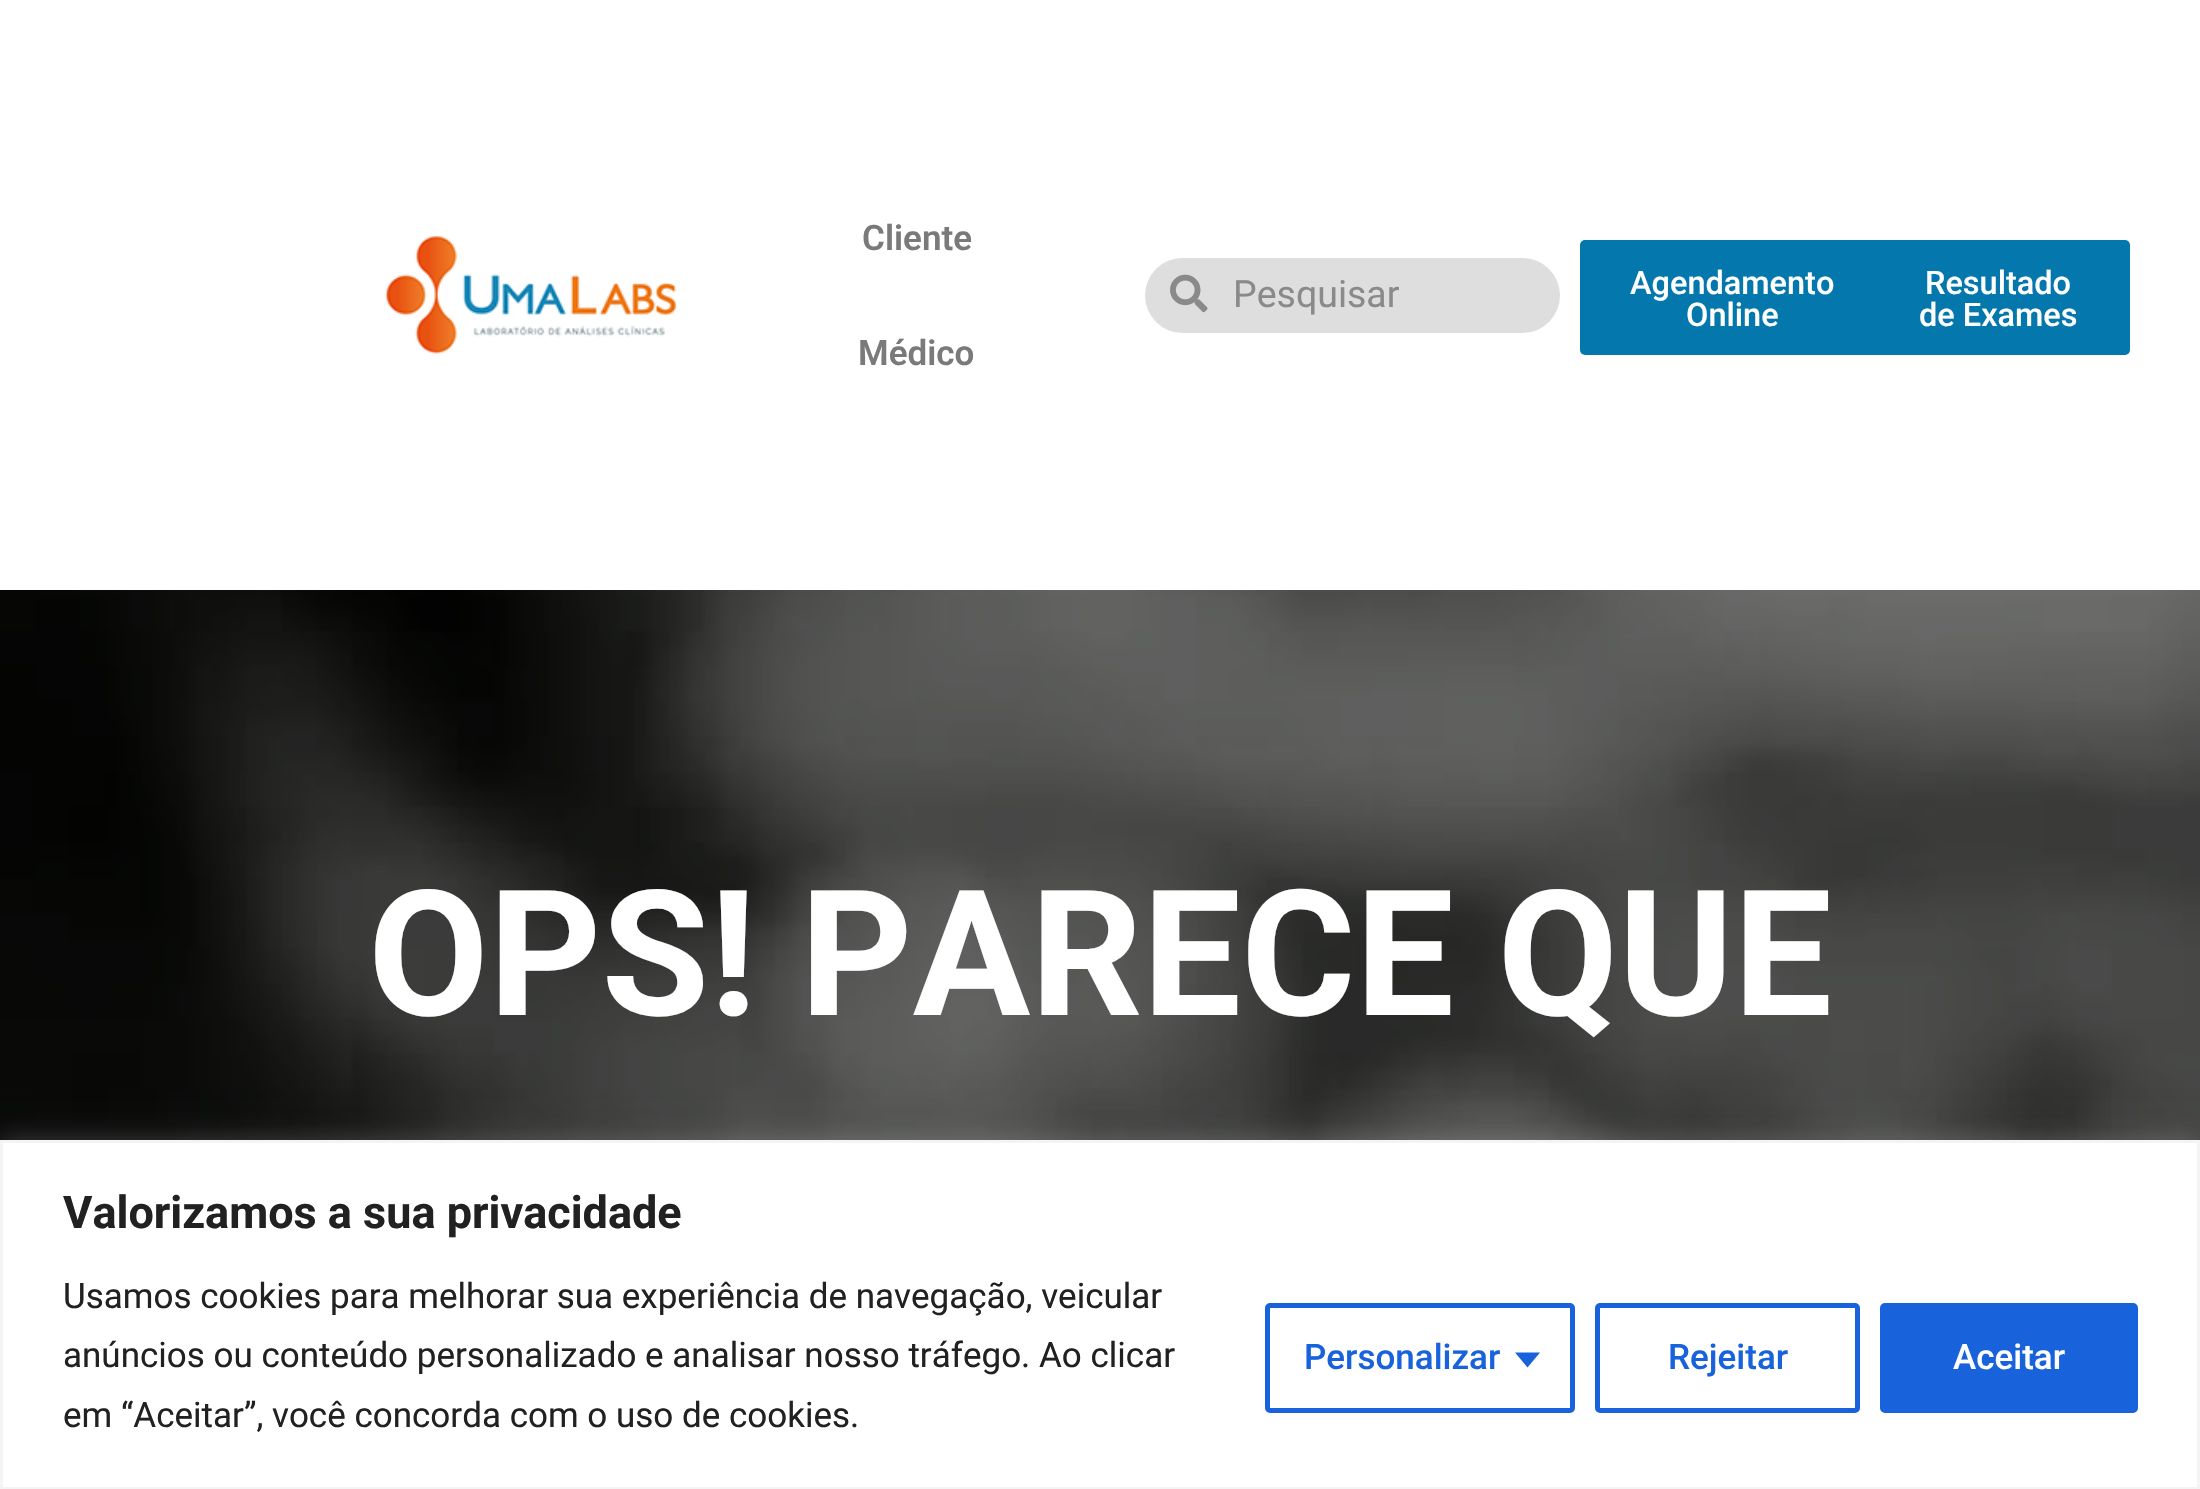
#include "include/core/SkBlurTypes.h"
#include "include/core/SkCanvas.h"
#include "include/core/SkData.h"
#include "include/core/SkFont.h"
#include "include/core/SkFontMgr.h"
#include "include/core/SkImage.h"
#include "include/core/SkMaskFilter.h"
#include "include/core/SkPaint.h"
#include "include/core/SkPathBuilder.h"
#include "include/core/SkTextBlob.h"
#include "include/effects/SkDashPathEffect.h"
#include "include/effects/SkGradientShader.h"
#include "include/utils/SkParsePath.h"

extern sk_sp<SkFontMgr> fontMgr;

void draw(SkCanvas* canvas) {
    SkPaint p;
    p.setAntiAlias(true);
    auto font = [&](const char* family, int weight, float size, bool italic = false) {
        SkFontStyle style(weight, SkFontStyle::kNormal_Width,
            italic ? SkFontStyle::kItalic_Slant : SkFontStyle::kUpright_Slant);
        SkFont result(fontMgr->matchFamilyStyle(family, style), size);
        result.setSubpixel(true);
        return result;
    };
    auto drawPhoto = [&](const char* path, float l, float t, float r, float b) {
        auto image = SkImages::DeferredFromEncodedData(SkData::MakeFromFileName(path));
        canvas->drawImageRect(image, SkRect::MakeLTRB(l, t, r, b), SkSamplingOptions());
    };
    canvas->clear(0xFFFFFFFF);
    drawPhoto("media/1.png", 385, 236, 677, 354);
    auto font1 = font("Roboto", 600, 35);
    p.setColor(0xFF7A7A7A);
    canvas->drawString("Cliente", 862, 250, font1, p);
    canvas->drawString("Médico", 858, 365, font1, p);
    p.setColor(0xFFDEDEDE);
    canvas->drawRoundRect(SkRect::MakeLTRB(1145, 258, 1560, 333), 37.5f, 37.5f, p);
    drawPhoto("media/2.png", 1170, 274, 1208, 313);
    auto font2 = font("Roboto", 400, 37.5f);
    p.setColor(0xFF8A8A8A);
    canvas->drawString("Pesquisar", 1233, 307, font2, p);
    p.setColor(0xFF0477AC);
    canvas->drawRoundRect(SkRect::MakeLTRB(1580, 240, 1885, 355), 5, 5, p);
    auto font3 = font("Roboto", 500, 32.5f);
    p.setColor(0xFFFFFFFF);
    canvas->drawString("Agendamento", 1630, 294, font3, p);
    canvas->drawString("Online", 1686, 326, font3, p);
    p.setColor(0xFF0477AC);
    canvas->drawRoundRect(SkRect::MakeLTRB(1865, 240, 2130, 355), 5, 5, p);
    p.setColor(0xFFFFFFFF);
    canvas->drawString("Resultado", 1925, 294, font3, p);
    canvas->drawString("de Exames", 1919, 326, font3, p);
    drawPhoto("media/3.png", 0, 590, 2200, 1140);
    auto font4 = font("Roboto", 700, 175);
    canvas->drawString("OPS! PARECE QUE", 368, 1015, font4, p);
    p.setColor(0x4DACABAB);
    p.setMaskFilter(SkMaskFilter::MakeBlur(kNormal_SkBlurStyle, 12.5f));
    canvas->drawRect(SkRect::MakeLTRB(0, 1138, 2200, 1488), p);
    p.setMaskFilter(nullptr);
    p.setColor(0xFFFFFFFF);
    canvas->drawRect(SkRect::MakeLTRB(1.5f, 1141.5f, 2198.5f, 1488.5f), p);
    p.setStyle(SkPaint::kStroke_Style);
    p.setStrokeWidth(3);
    p.setColor(0xFFF4F4F4);
    canvas->drawRect(SkRect::MakeLTRB(1.5f, 1141.5f, 2198.5f, 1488.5f), p);
    auto font5 = font("Roboto", 700, 45);
    p.setStyle(SkPaint::kFill_Style);
    p.setColor(0xFF212121);
    canvas->drawString("Valorizamos a sua privacidade", 63, 1228, font5, p);
    auto font6 = font("Roboto", 400, 35);
    {
        const struct { const char* s; float x, y; } items[] = {
            {"Usamos cookies para melhorar sua experiência de navegação, veicular", 63, 1308},
            {"anúncios ou conteúdo personalizado e analisar nosso tráfego. Ao clicar", 63, 1367},
            {"em “Aceitar”, você concorda com o uso de cookies.", 63, 1427},
        };
        for (auto [s, x, y] : items) {
            canvas->drawString(s, x, y, font6, p);
        }
    }
    p.setStyle(SkPaint::kStroke_Style);
    p.setStrokeWidth(5);
    p.setColor(0xFF1863DC);
    canvas->drawRoundRect(SkRect::MakeLTRB(1267.5f, 1305.5f, 1572.5f, 1410.5f), 2.5f, 2.5f, p);
    auto font7 = font("Roboto", 500, 35);
    p.setStyle(SkPaint::kFill_Style);
    canvas->drawString("Personalizar", 1304, 1369, font7, p);
    canvas->drawPath(SkPathBuilder().moveTo(1515, 1352.5f).lineTo(1540, 1352.5f).lineTo(1527.5f, 1367.5f).close().detach(), p);
    p.setStyle(SkPaint::kStroke_Style);
    canvas->drawRoundRect(SkRect::MakeLTRB(1597.5f, 1305.5f, 1857.5f, 1410.5f), 2.5f, 2.5f, p);
    p.setStyle(SkPaint::kFill_Style);
    canvas->drawString("Rejeitar", 1668, 1369, font7, p);
    canvas->drawRoundRect(SkRect::MakeLTRB(1882.5f, 1305.5f, 2135.5f, 1410.5f), 2.5f, 2.5f, p);
    p.setStyle(SkPaint::kStroke_Style);
    canvas->drawRoundRect(SkRect::MakeLTRB(1882.5f, 1305.5f, 2135.5f, 1410.5f), 2.5f, 2.5f, p);
    p.setStyle(SkPaint::kFill_Style);
    p.setColor(0xFFFFFFFF);
    canvas->drawString("Aceitar", 1953, 1369, font7, p);
}
